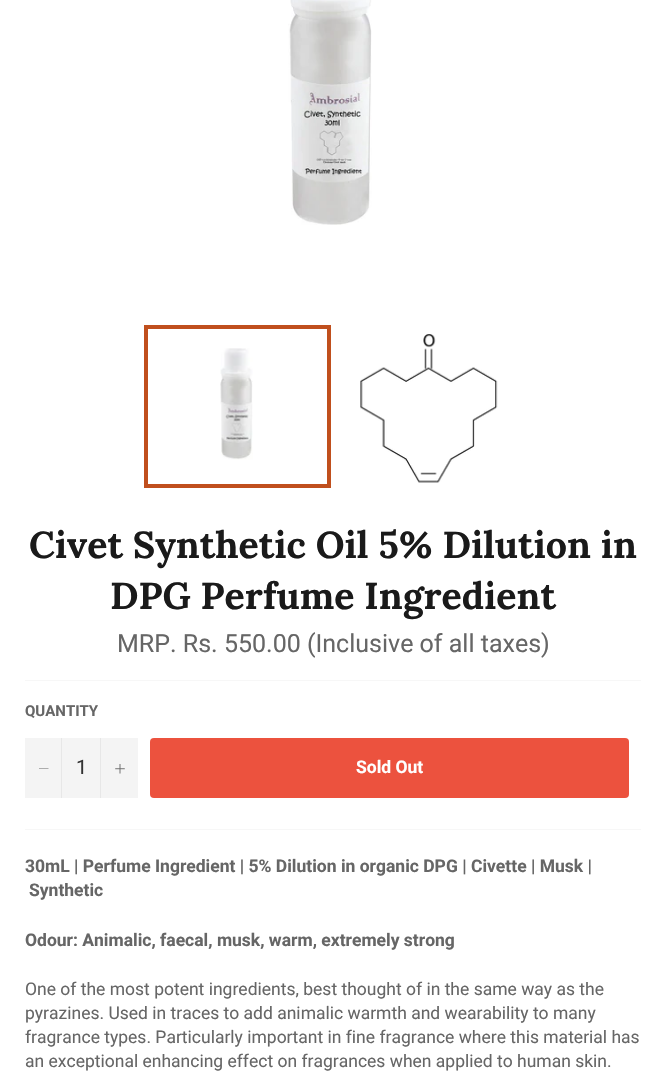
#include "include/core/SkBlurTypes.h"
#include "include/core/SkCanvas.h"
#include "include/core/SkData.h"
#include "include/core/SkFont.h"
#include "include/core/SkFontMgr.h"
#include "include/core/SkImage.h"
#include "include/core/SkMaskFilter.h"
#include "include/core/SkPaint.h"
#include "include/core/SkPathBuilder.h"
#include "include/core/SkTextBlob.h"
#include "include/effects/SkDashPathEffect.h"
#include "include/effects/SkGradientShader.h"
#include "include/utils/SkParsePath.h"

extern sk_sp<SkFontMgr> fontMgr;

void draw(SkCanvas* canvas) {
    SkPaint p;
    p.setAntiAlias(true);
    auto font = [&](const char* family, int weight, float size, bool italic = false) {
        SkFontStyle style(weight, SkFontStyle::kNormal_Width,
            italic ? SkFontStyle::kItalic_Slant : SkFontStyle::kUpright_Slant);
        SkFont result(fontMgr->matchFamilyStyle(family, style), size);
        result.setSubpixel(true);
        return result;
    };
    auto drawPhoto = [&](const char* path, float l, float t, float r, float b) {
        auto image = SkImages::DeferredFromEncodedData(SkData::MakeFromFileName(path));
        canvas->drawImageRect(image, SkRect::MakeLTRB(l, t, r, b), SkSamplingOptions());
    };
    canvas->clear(0xFFFFFFFF);
    drawPhoto("media/1.png", 288, 0, 372, 225);
    drawPhoto("media/2.png", 220, 348, 253, 460);
    p.setStyle(SkPaint::kStroke_Style);
    p.setStrokeWidth(4);
    p.setColor(0xFFC04F1D);
    canvas->drawRect(SkRect::MakeLTRB(146, 327, 329, 486), p);
    drawPhoto("media/3.png", 360, 334, 498, 483);
    auto font1 = font("Lora", 700, 37.5f);
    p.setStyle(SkPaint::kFill_Style);
    p.setColor(0xFF1A1A1A);
    canvas->drawString("Civet Synthetic Oil 5% Dilution in", 29, 558, font1, p);
    canvas->drawString("DPG Perfume Ingredient", 110, 609, font1, p);
    auto font2 = font("Roboto", 400, 25);
    p.setColor(0xFF666666);
    canvas->drawString("MRP. Rs. 550.00 (Inclusive of all taxes)", 117, 652, font2, p);
    p.setColor(0xFFF7F7F7);
    canvas->drawRect(SkRect::MakeLTRB(25, 680, 641, 681), p);
    auto font3 = font("Roboto", 700, 15);
    p.setColor(0xFF666666);
    canvas->drawString("QUANTITY", 25, 716, font3, p);
    p.setColor(0xFFF4F4F4);
    canvas->drawRect(SkRect::MakeLTRB(25, 738, 138, 798), p);
    p.setColor(0xFFE7E7E7);
    canvas->drawRect(SkRect::MakeLTRB(61, 738, 62, 798), p);
    p.setColor(0xFF666666);
    canvas->drawPath(SkPathBuilder(SkPathFillType::kEvenOdd).moveTo(48.5f, 768.5f).lineTo(48.5f, 769).lineTo(39, 769).lineTo(39, 768.5f).close().detach(), p);
    auto font4 = font("Roboto", 400, 20);
    p.setColor(0xFF333333);
    canvas->drawString("1", 76, 774, font4, p);
    p.setColor(0xFFE7E7E7);
    canvas->drawRect(SkRect::MakeLTRB(100, 738, 101, 798), p);
    drawPhoto("media/4.png", 115, 764, 125, 774);
    p.setColor(0xFFEC523E);
    canvas->drawRoundRect(SkRect::MakeLTRB(150, 738, 629, 798), 4, 4, p);
    auto font5 = font("Roboto", 700, 17.5f);
    p.setColor(0xFFFFFFFF);
    canvas->drawString("Sold Out", 356, 773, font5, p);
    p.setColor(0xFFF7F7F7);
    canvas->drawRect(SkRect::MakeLTRB(25, 829, 641, 830), p);
    p.setColor(0xFF666666);
    {
        const struct { const char* s; float x, y; } items[] = {
            {"30mL | Perfume Ingredient | 5% Dilution in organic DPG | Civette | Musk |", 25, 872},
            {"Synthetic", 29, 896},
            {"Odour: Animalic, faecal, musk, warm, extremely strong", 25, 946},
        };
        for (auto [s, x, y] : items) {
            canvas->drawString(s, x, y, font5, p);
        }
    }
    auto font6 = font("Roboto", 400, 17.5f);
    {
        const struct { const char* s; float x, y; } items[] = {
            {"One of the most potent ingredients, best thought of in the same way as the", 25, 995},
            {"pyrazines. Used in traces to add animalic warmth and wearability to many", 25, 1019},
            {"fragrance types. Particularly important in fine fragrance where this material has", 25, 1043},
            {"an exceptional enhancing effect on fragrances when applied to human skin.", 25, 1067},
        };
        for (auto [s, x, y] : items) {
            canvas->drawString(s, x, y, font6, p);
        }
    }
}
